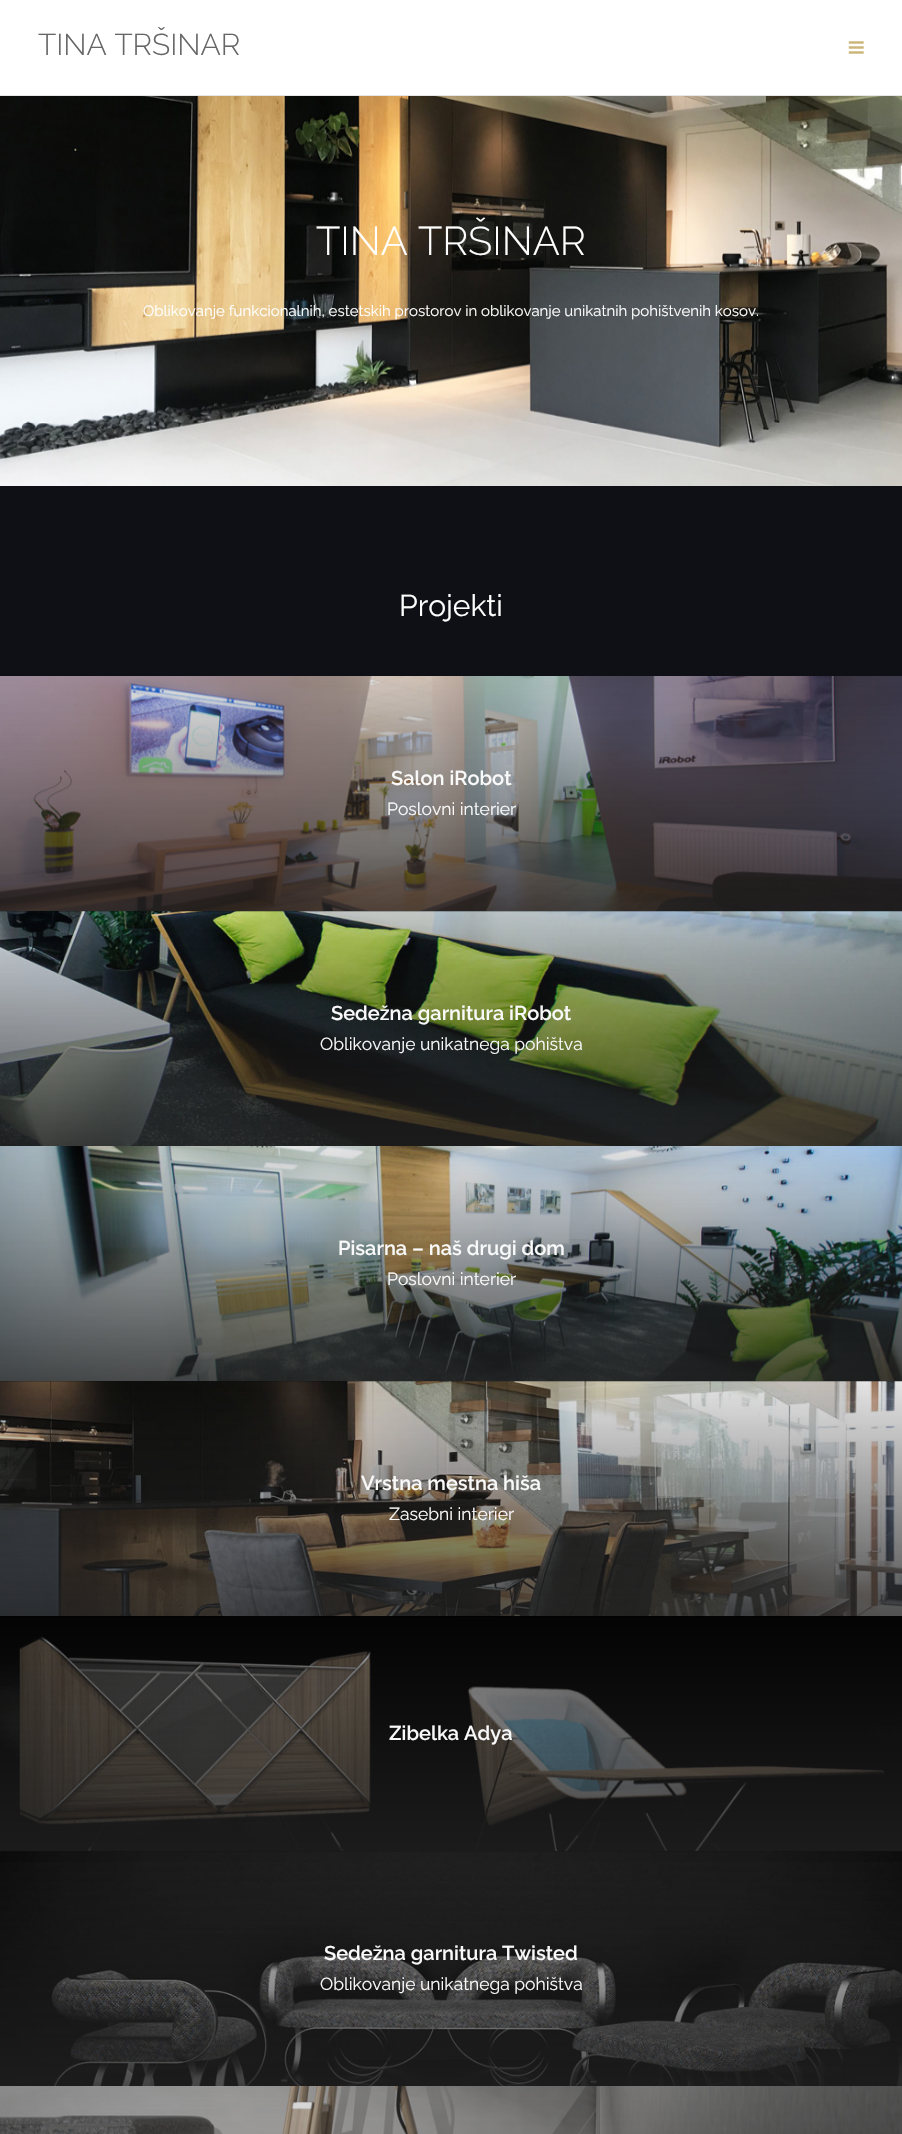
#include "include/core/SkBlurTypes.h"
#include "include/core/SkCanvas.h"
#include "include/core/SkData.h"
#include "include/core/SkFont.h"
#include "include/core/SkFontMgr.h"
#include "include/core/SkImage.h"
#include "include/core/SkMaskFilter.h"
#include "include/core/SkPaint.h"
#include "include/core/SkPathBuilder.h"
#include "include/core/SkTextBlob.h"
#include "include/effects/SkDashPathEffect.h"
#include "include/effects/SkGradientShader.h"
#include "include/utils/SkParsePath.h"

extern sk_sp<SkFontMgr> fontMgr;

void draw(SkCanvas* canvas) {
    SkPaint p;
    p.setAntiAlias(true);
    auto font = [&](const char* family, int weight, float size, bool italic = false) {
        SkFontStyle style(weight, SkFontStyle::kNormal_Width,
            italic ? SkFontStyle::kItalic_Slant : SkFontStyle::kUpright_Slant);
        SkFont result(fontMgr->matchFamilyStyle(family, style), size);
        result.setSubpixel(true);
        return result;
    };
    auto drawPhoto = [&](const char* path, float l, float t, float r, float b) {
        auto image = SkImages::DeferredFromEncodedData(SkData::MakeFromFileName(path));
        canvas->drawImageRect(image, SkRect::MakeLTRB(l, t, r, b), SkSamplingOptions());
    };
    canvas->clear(0xFFFFFFFF);
    p.setColor(0xFFE6E6E6);
    canvas->drawRect(SkRect::MakeLTRB(0, 95, 902, 96), p);
    auto font1 = font("Raleway", 300, 30);
    p.setColor(0xFF666666);
    canvas->drawString("TINA TRŠINAR", 38, 55, font1, p);
    drawPhoto("media/1.png", 848, 41, 864, 54);
    drawPhoto("media/9.png", 0, 96, 902, 486);
    auto font2 = font("Raleway", 300, 40);
    p.setColor(0xFFFFFFFF);
    canvas->drawString("TINA TRŠINAR", 316, 255, font2, p);
    auto font3 = font("Raleway", 400, 15);
    canvas->drawString("Oblikovanje funkcionalnih, estetskih prostorov in oblikovanje unikatnih pohištvenih kosov.", 143, 316, font3, p);
    p.setColor(0xFF0E1015);
    canvas->drawRect(SkRect::MakeLTRB(0, 486, 902, 2134), p);
    auto font4 = font("Raleway", 400, 30);
    p.setColor(0xFFFFFFFF);
    canvas->drawString("Projekti", 399, 616, font4, p);
    drawPhoto("media/2.png", 0, 676, 902, 911);
    {
        const SkColor colors[] = {0x00222222, 0xD9222222};
        const float stops[] = {0, 1};
        const SkPoint ends[] = {{451, 653}, {451, 935}};
        p.setShader(SkGradientShader::MakeLinear(ends, colors, stops, 2, SkTileMode::kClamp));
        p.setAlpha(255);
    }
    canvas->drawRect(SkRect::MakeLTRB(0, 676, 902, 911), p);
    auto font5 = font("Raleway", 600, 20);
    p.setShader(nullptr);
    p.setColor(0xFFF9F9F9);
    canvas->drawString("Salon iRobot", 391, 785, font5, p);
    auto font6 = font("Raleway", 400, 17.5f);
    canvas->drawString("Poslovni interier", 387, 815, font6, p);
    drawPhoto("media/3.png", 0, 911, 902, 1147);
    {
        const SkColor colors[] = {0x00222222, 0xD9222222};
        const float stops[] = {0, 1};
        const SkPoint ends[] = {{451, 888}, {451, 1170}};
        p.setShader(SkGradientShader::MakeLinear(ends, colors, stops, 2, SkTileMode::kClamp));
        p.setAlpha(255);
    }
    canvas->drawRect(SkRect::MakeLTRB(0, 911, 902, 1146), p);
    p.setShader(nullptr);
    p.setColor(0xFFF9F9F9);
    canvas->drawString("Sedežna garnitura iRobot", 331, 1020, font5, p);
    canvas->drawString("Oblikovanje unikatnega pohištva", 320, 1050, font6, p);
    drawPhoto("media/4.png", 0, 1146, 902, 1381);
    {
        const SkColor colors[] = {0x00222222, 0xD9222222};
        const float stops[] = {0, 1};
        const SkPoint ends[] = {{451, 1123}, {451, 1405}};
        p.setShader(SkGradientShader::MakeLinear(ends, colors, stops, 2, SkTileMode::kClamp));
        p.setAlpha(255);
    }
    canvas->drawRect(SkRect::MakeLTRB(0, 1146, 902, 1381), p);
    p.setShader(nullptr);
    p.setColor(0xFFF9F9F9);
    canvas->drawString("Pisarna – naš drugi dom", 338, 1255, font5, p);
    canvas->drawString("Poslovni interier", 387, 1285, font6, p);
    drawPhoto("media/5.png", 0, 1381, 902, 1617);
    {
        const SkColor colors[] = {0x00222222, 0xD9222222};
        const float stops[] = {0, 1};
        const SkPoint ends[] = {{451, 1358}, {451, 1640}};
        p.setShader(SkGradientShader::MakeLinear(ends, colors, stops, 2, SkTileMode::kClamp));
        p.setAlpha(255);
    }
    canvas->drawRect(SkRect::MakeLTRB(0, 1381, 902, 1616), p);
    p.setShader(nullptr);
    p.setColor(0xFFF9F9F9);
    canvas->drawString("Vrstna mestna hiša", 361, 1490, font5, p);
    canvas->drawString("Zasebni interier", 389, 1520, font6, p);
    drawPhoto("media/6.png", 0, 1616, 902, 1851);
    {
        const SkColor colors[] = {0x00222222, 0xD9222222};
        const float stops[] = {0, 1};
        const SkPoint ends[] = {{451, 1593}, {451, 1875}};
        p.setShader(SkGradientShader::MakeLinear(ends, colors, stops, 2, SkTileMode::kClamp));
        p.setAlpha(255);
    }
    canvas->drawRect(SkRect::MakeLTRB(0, 1617, 902, 1851), p);
    p.setShader(nullptr);
    p.setColor(0xFFF9F9F9);
    canvas->drawString("Zibelka Adya", 389, 1740, font5, p);
    drawPhoto("media/7.png", 0, 1851, 902, 2087);
    {
        const SkColor colors[] = {0x00222222, 0xD9222222};
        const float stops[] = {0, 1};
        const SkPoint ends[] = {{451, 1828}, {451, 2110}};
        p.setShader(SkGradientShader::MakeLinear(ends, colors, stops, 2, SkTileMode::kClamp));
        p.setAlpha(255);
    }
    canvas->drawRect(SkRect::MakeLTRB(0, 1862, 902, 2086), p);
    p.setShader(nullptr);
    p.setColor(0xFFF9F9F9);
    canvas->drawString("Sedežna garnitura Twisted", 324, 1960, font5, p);
    canvas->drawString("Oblikovanje unikatnega pohištva", 320, 1990, font6, p);
    drawPhoto("media/8.png", 0, 2086, 902, 2134);
    {
        const SkColor colors[] = {0x00222222, 0xD9222222};
        const float stops[] = {0, 1};
        const SkPoint ends[] = {{451, 2063}, {451, 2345}};
        p.setShader(SkGradientShader::MakeLinear(ends, colors, stops, 2, SkTileMode::kClamp));
        p.setAlpha(255);
    }
    canvas->drawRect(SkRect::MakeLTRB(0, 2086, 902, 2134), p);
}
